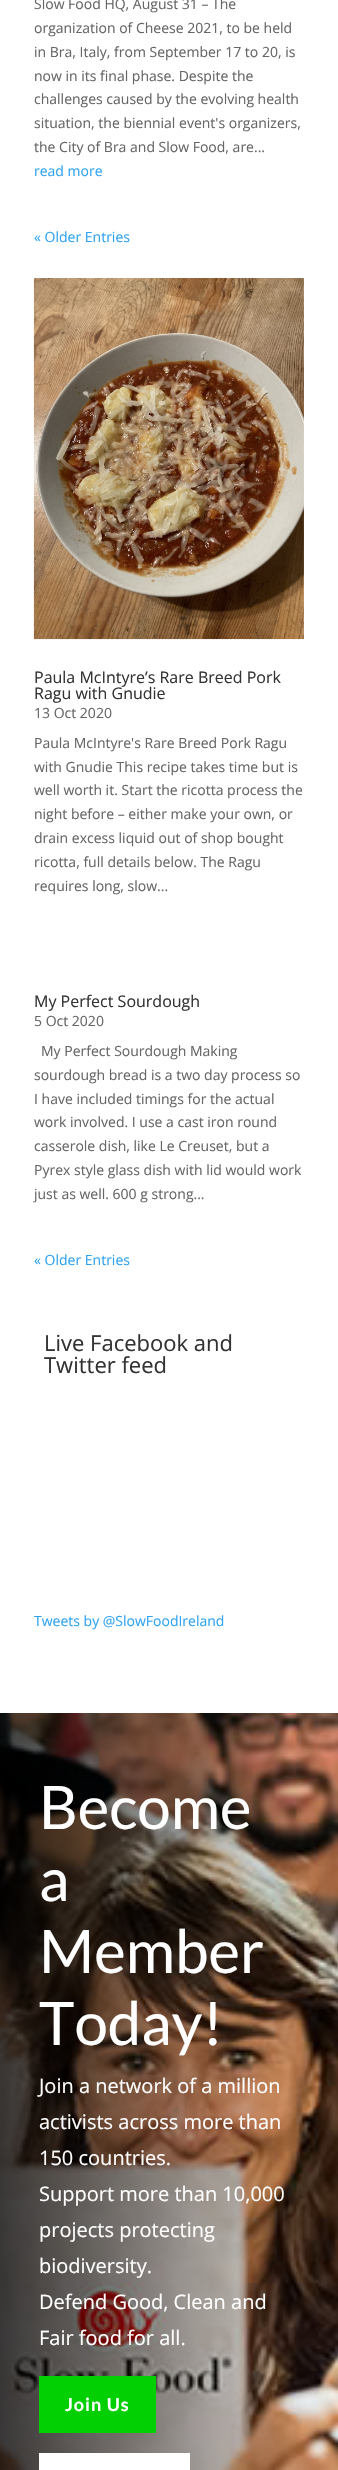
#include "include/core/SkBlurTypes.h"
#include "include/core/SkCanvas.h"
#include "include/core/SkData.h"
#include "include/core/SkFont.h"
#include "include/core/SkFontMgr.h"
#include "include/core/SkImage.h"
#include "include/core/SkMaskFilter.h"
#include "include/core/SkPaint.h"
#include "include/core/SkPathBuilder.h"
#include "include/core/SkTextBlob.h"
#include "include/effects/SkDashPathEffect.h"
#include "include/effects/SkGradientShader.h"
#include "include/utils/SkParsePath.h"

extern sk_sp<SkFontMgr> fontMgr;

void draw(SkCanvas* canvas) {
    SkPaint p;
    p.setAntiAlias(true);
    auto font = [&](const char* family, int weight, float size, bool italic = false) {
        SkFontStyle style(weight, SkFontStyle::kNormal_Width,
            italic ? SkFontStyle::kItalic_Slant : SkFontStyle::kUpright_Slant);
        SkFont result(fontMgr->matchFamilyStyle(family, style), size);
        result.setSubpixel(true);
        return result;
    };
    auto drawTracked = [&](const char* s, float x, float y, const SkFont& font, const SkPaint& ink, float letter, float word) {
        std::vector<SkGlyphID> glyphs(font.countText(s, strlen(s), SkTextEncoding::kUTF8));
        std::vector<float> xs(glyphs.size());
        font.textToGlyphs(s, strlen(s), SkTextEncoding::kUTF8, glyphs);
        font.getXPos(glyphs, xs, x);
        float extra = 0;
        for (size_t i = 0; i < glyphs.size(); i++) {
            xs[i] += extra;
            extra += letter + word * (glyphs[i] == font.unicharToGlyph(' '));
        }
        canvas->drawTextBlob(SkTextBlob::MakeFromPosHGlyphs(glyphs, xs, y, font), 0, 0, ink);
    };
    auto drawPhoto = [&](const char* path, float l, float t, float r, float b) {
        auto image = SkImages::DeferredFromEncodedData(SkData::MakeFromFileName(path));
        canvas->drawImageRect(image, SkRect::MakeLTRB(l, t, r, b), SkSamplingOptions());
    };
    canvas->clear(0xFFFFFFFF);
    auto font1 = font("Open Sans", 400, 14);
    p.setColor(0xFF666666);
    {
        const struct { const char* s; float x, y; } items[] = {
            {"Slow Food HQ, August 31 – The", 34, 9},
            {"organization of Cheese 2021, to be held", 34, 33},
            {"in Bra, Italy, from September 17 to 20, is", 34, 57},
            {"now in its final phase. Despite the", 34, 81},
            {"challenges caused by the evolving health", 34, 104},
            {"situation, the biennial event's organizers,", 34, 128},
            {"the City of Bra and Slow Food, are...", 34, 152},
        };
        for (auto [s, x, y] : items) {
            canvas->drawString(s, x, y, font1, p);
        }
    }
    p.setColor(0xFF2EA3F2);
    canvas->drawString("read more", 34, 176, font1, p);
    canvas->drawString("« Older Entries", 34, 242, font1, p);
    drawPhoto("media/1.png", 33, 278, 304, 640);
    auto font2 = font("Open Sans", 400, 16);
    p.setColor(0xFF333333);
    canvas->drawString("Paula McIntyre’s Rare Breed Pork", 34, 683, font2, p);
    canvas->drawString("Ragu with Gnudie", 34, 699, font2, p);
    p.setColor(0xFF666666);
    {
        const struct { const char* s; float x, y; } items[] = {
            {"13 Oct 2020", 34, 718},
            {"Paula McIntyre's Rare Breed Pork Ragu", 34, 748},
            {"with Gnudie This recipe takes time but is", 34, 772},
            {"well worth it. Start the ricotta process the", 34, 795},
            {"night before – either make your own, or", 34, 819},
            {"drain excess liquid out of shop bought", 34, 843},
            {"ricotta, full details below. The Ragu", 34, 867},
            {"requires long, slow...", 34, 891},
        };
        for (auto [s, x, y] : items) {
            canvas->drawString(s, x, y, font1, p);
        }
    }
    p.setColor(0xFF333333);
    canvas->drawString("My Perfect Sourdough", 34, 1007, font2, p);
    p.setColor(0xFF666666);
    {
        const struct { const char* s; float x, y; } items[] = {
            {"5 Oct 2020", 34, 1026},
            {"My Perfect Sourdough Making", 41, 1056},
            {"sourdough bread is a two day process so", 34, 1080},
            {"I have included timings for the actual", 34, 1104},
            {"work involved. I use a cast iron round", 34, 1127},
            {"casserole dish, like Le Creuset, but a", 34, 1151},
            {"Pyrex style glass dish with lid would work", 34, 1175},
            {"just as well. 600 g strong...", 34, 1199},
        };
        for (auto [s, x, y] : items) {
            canvas->drawString(s, x, y, font1, p);
        }
    }
    p.setColor(0xFF2EA3F2);
    canvas->drawString("« Older Entries", 34, 1265, font1, p);
    auto font3 = font("Open Sans", 400, 22);
    p.setColor(0xFF333333);
    canvas->drawString("Live Facebook and", 44, 1351, font3, p);
    canvas->drawString("Twitter feed", 44, 1373, font3, p);
    p.setColor(0xFF2EA3F2);
    canvas->drawString("Tweets by @SlowFoodIreland", 34, 1626, font1, p);
    drawPhoto("media/2.png", 0, 1713, 338, 2470);
    auto font4 = font("Lato", 400, 60);
    p.setColor(0xFFFFFFFF);
    {
        const struct { const char* s; float x, y; } items[] = {
            {"Become", 39, 1829},
            {"a", 39, 1901},
            {"Member", 39, 1973},
            {"Today!", 39, 2045},
        };
        for (auto [s, x, y] : items) {
            canvas->drawString(s, x, y, font4, p);
        }
    }
    auto font5 = font("Open Sans", 400, 20);
    {
        const struct { const char* s; float x, y; } items[] = {
            {"Join a network of a million", 39, 2093},
            {"activists across more than", 39, 2129},
            {"150 countries.", 39, 2165},
            {"Support more than 10,000", 39, 2201},
            {"projects protecting", 39, 2237},
            {"biodiversity.", 39, 2273},
            {"Defend Good, Clean and", 39, 2309},
            {"Fair food for all.", 39, 2345},
        };
        for (auto [s, x, y] : items) {
            canvas->drawString(s, x, y, font5, p);
        }
    }
    p.setColor(0xFF02D002);
    canvas->drawRect(SkRect::MakeLTRB(39, 2376, 156, 2433), p);
    auto font6 = font("Lato", 700, 18);
    p.setColor(0xFFFFFFFF);
    drawTracked("Join Us", 65, 2411, font6, p, 1, 0);
    canvas->drawRect(SkRect::MakeLTRB(39, 2453, 190, 2470), p);
}
